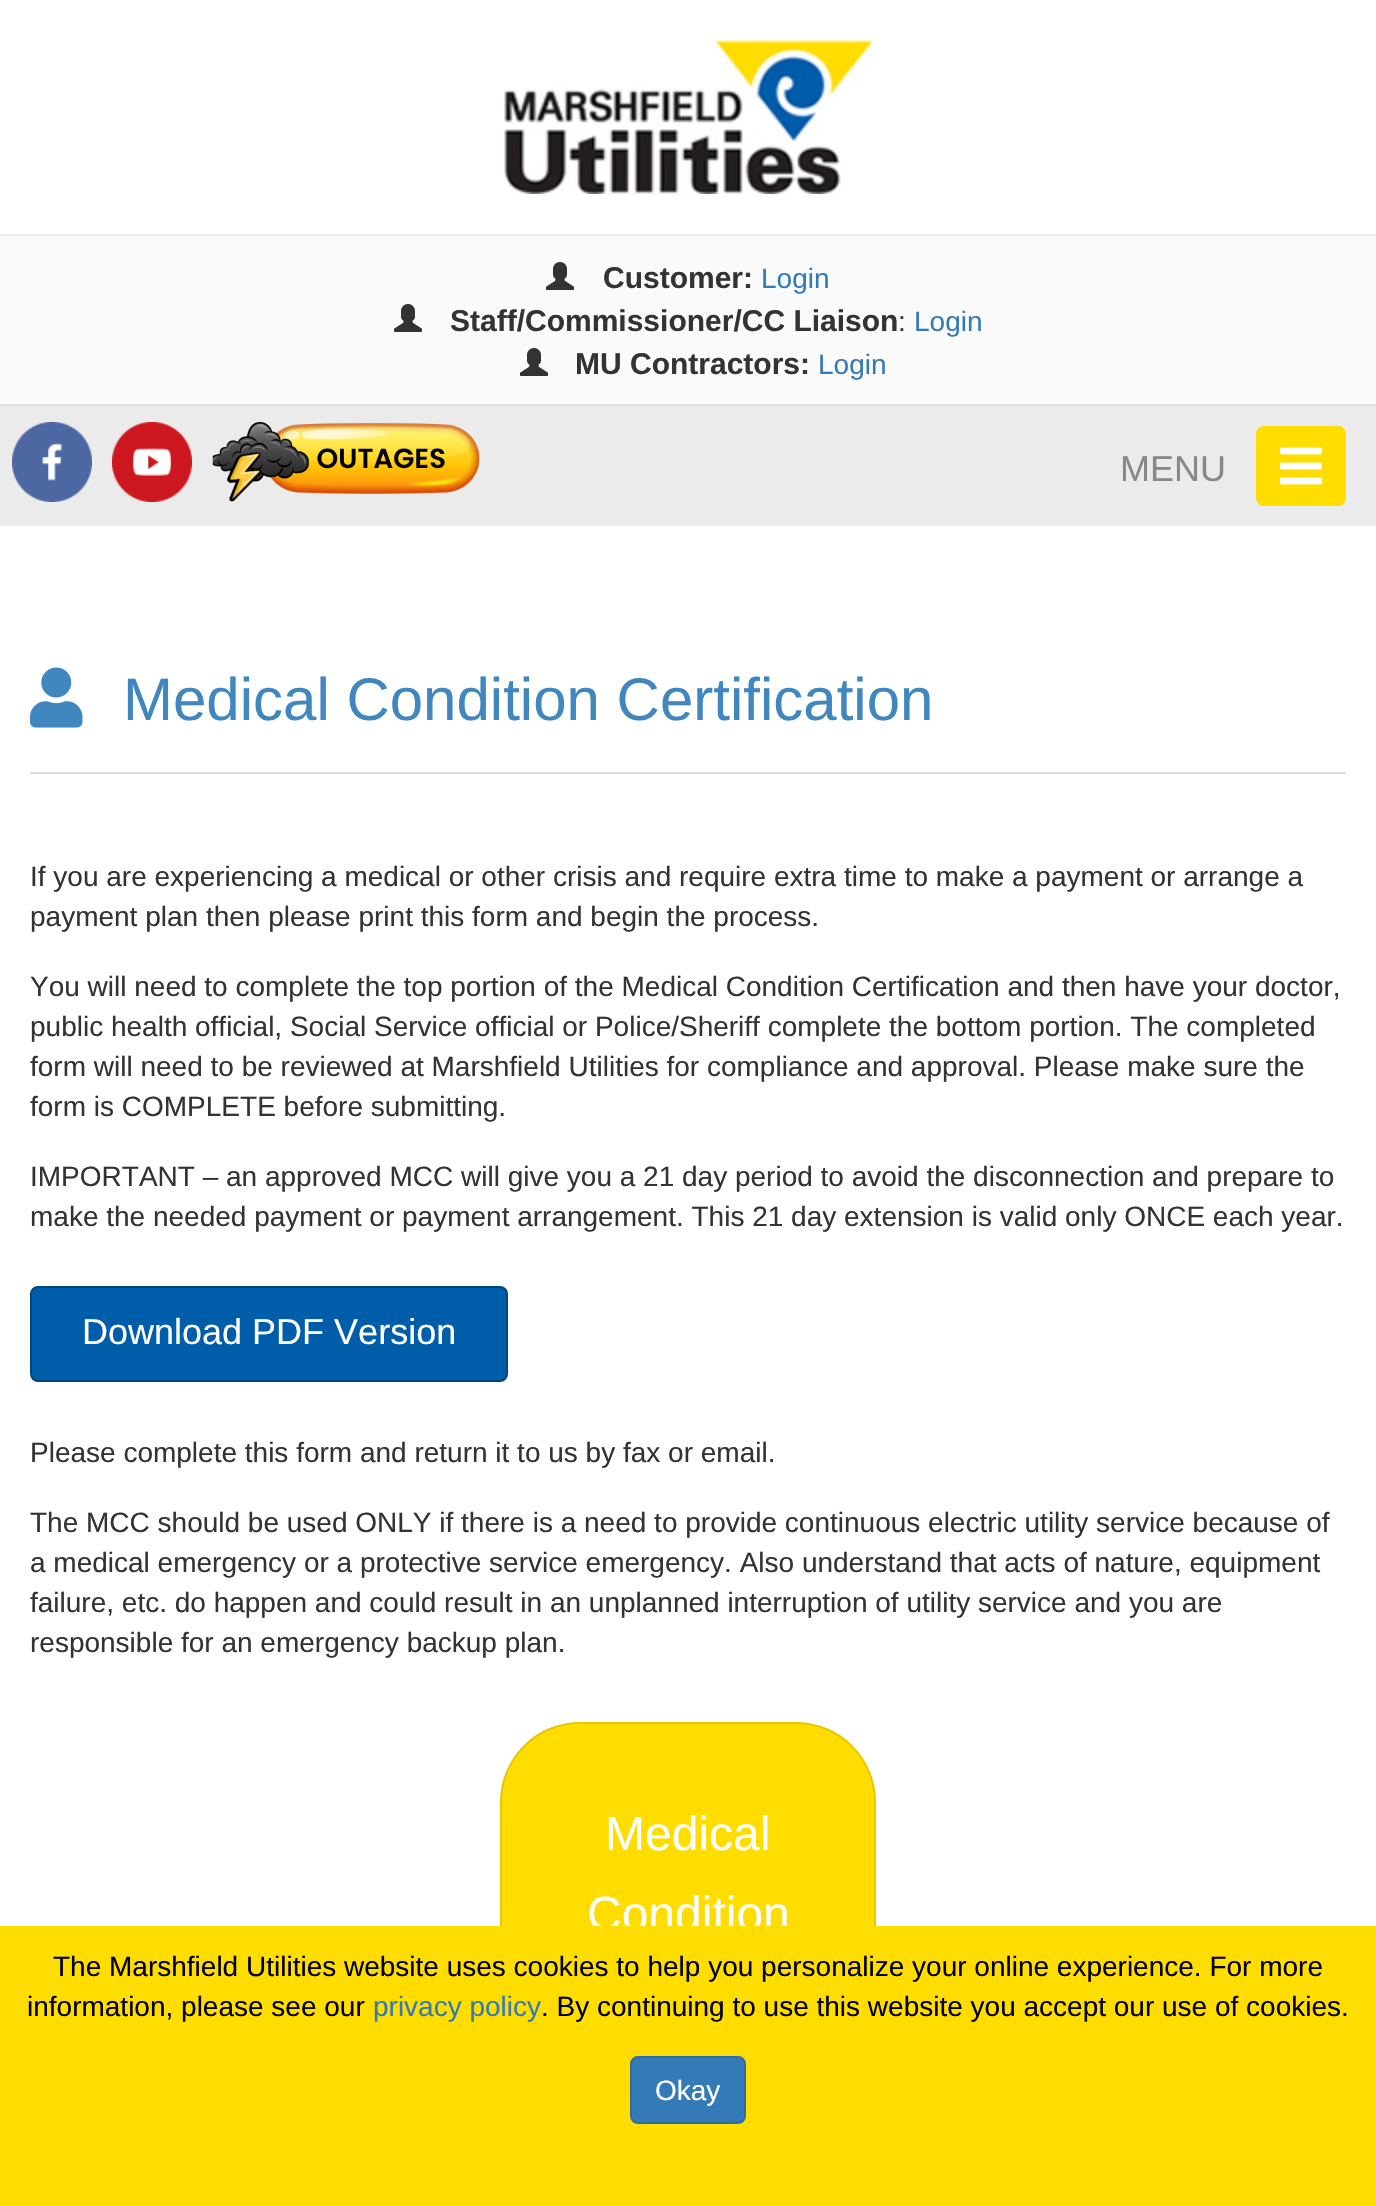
#include "include/core/SkBlurTypes.h"
#include "include/core/SkCanvas.h"
#include "include/core/SkData.h"
#include "include/core/SkFont.h"
#include "include/core/SkFontMgr.h"
#include "include/core/SkImage.h"
#include "include/core/SkMaskFilter.h"
#include "include/core/SkPaint.h"
#include "include/core/SkPathBuilder.h"
#include "include/core/SkTextBlob.h"
#include "include/effects/SkDashPathEffect.h"
#include "include/effects/SkGradientShader.h"
#include "include/utils/SkParsePath.h"

extern sk_sp<SkFontMgr> fontMgr;

void draw(SkCanvas* canvas) {
    SkPaint p;
    p.setAntiAlias(true);
    auto font = [&](const char* family, int weight, float size, bool italic = false) {
        SkFontStyle style(weight, SkFontStyle::kNormal_Width,
            italic ? SkFontStyle::kItalic_Slant : SkFontStyle::kUpright_Slant);
        SkFont result(fontMgr->matchFamilyStyle(family, style), size);
        result.setSubpixel(true);
        return result;
    };
    auto drawPhoto = [&](const char* path, float l, float t, float r, float b) {
        auto image = SkImages::DeferredFromEncodedData(SkData::MakeFromFileName(path));
        canvas->drawImageRect(image, SkRect::MakeLTRB(l, t, r, b), SkSamplingOptions());
    };
    canvas->clear(0xFFFFFFFF);
    drawPhoto("media/1.png", 504, 40, 874, 194);
    {
        const struct { float l, t, r, b; SkColor color; } items[] = {
            {0, 234, 1376, 526, 0xFFEBEBEB},
            {0, 236, 1376, 404, 0xFFFAFAFA},
            {0, 404, 1376, 406, 0xFFDDDDDD},
        };
        for (auto [l, t, r, b, color] : items) {
            p.setColor(color);
            canvas->drawRect(SkRect::MakeLTRB(l, t, r, b), p);
        }
    }
    drawPhoto("media/2.png", 546, 262, 574, 290);
    auto font1 = font("Liberation Sans", 700, 30);
    p.setColor(0xFF333333);
    canvas->drawString("Customer:", 603, 288, font1, p);
    auto font2 = font("Liberation Sans", 400, 28);
    p.setColor(0xFF337AB7);
    canvas->drawString("Login", 761, 288, font2, p);
    drawPhoto("media/2.png", 394, 304, 422, 332);
    p.setColor(0xFF333333);
    canvas->drawString("Staff/Commissioner/CC Liaison", 450, 331, font1, p);
    canvas->drawString(":", 898, 331, font2, p);
    p.setColor(0xFF337AB7);
    canvas->drawString("Login", 914, 331, font2, p);
    drawPhoto("media/2.png", 520, 348, 548, 376);
    p.setColor(0xFF333333);
    canvas->drawString("MU Contractors:", 575, 374, font1, p);
    p.setColor(0xFF337AB7);
    canvas->drawString("Login", 818, 374, font2, p);
    drawPhoto("media/3.png", 12, 422, 92, 502);
    drawPhoto("media/4.png", 112, 422, 192, 502);
    drawPhoto("media/5.png", 212, 422, 480, 502);
    auto font3 = font("Liberation Sans", 400, 36);
    p.setColor(0xFF888888);
    canvas->drawString("MENU", 1120, 481, font3, p);
    p.setColor(0xFFFFDD00);
    canvas->drawRoundRect(SkRect::MakeLTRB(1256, 426, 1346, 506), 8, 8, p);
    drawPhoto("media/6.png", 1280, 447, 1322, 485);
    drawPhoto("media/7.png", 30, 667, 83, 728);
    auto font4 = font("Liberation Sans", 400, 60);
    p.setColor(0xFF4086BF);
    canvas->drawString("Medical Condition Certification", 123, 720, font4, p);
    p.setColor(0xFFDDDDDD);
    canvas->drawRect(SkRect::MakeLTRB(30, 772, 1346, 774), p);
    p.setColor(0xFF333333);
    {
        const struct { const char* s; float x, y; } items[] = {
            {"If you are experiencing a medical or other crisis and require extra time to make a payment or arrange a", 30, 886},
            {"payment plan then please print this form and begin the process.", 30, 926},
            {"You will need to complete the top portion of the Medical Condition Certification and then have your doctor,", 30, 996},
            {"public health official, Social Service official or Police/Sheriff complete the bottom portion. The completed", 30, 1036},
            {"form will need to be reviewed at Marshfield Utilities for compliance and approval. Please make sure the", 30, 1076},
            {"form is COMPLETE before submitting.", 30, 1116},
            {"IMPORTANT – an approved MCC will give you a 21 day period to avoid the disconnection and prepare to", 30, 1186},
            {"make the needed payment or payment arrangement. This 21 day extension is valid only ONCE each year.", 30, 1226},
        };
        for (auto [s, x, y] : items) {
            canvas->drawString(s, x, y, font2, p);
        }
    }
    p.setColor(0xFF005DAA);
    canvas->drawRoundRect(SkRect::MakeLTRB(31, 1287, 507, 1381), 7, 7, p);
    p.setStyle(SkPaint::kStroke_Style);
    p.setStrokeWidth(2);
    p.setColor(0xFF00467F);
    canvas->drawRoundRect(SkRect::MakeLTRB(31, 1287, 507, 1381), 7, 7, p);
    p.setStyle(SkPaint::kFill_Style);
    p.setColor(0xFFFFFFFF);
    canvas->drawString("Download PDF Version", 82, 1344, font3, p);
    p.setColor(0xFF333333);
    {
        const struct { const char* s; float x, y; } items[] = {
            {"Please complete this form and return it to us by fax or email.", 30, 1462},
            {"The MCC should be used ONLY if there is a need to provide continuous electric utility service because of", 30, 1532},
            {"a medical emergency or a protective service emergency. Also understand that acts of nature, equipment", 30, 1572},
            {"failure, etc. do happen and could result in an unplanned interruption of utility service and you are", 30, 1612},
            {"responsible for an emergency backup plan.", 30, 1652},
        };
        for (auto [s, x, y] : items) {
            canvas->drawString(s, x, y, font2, p);
        }
    }
    p.setColor(0xFFFFDD00);
    canvas->drawRoundRect(SkRect::MakeLTRB(501, 1723, 875, 2105), 79, 79, p);
    p.setStyle(SkPaint::kStroke_Style);
    p.setColor(0xFFE6C700);
    canvas->drawRoundRect(SkRect::MakeLTRB(501, 1723, 875, 2105), 79, 79, p);
    auto font5 = font("Liberation Sans", 400, 48);
    p.setStyle(SkPaint::kFill_Style);
    p.setColor(0xFFFFFFFF);
    canvas->drawString("Medical", 605, 1850, font5, p);
    canvas->drawString("Condition", 587, 1930, font5, p);
    p.setColor(0xFFFFDD00);
    canvas->drawRect(SkRect::MakeLTRB(0, 1926, 1376, 2206), p);
    p.setColor(0xFF000000);
    canvas->drawString("The Marshfield Utilities website uses cookies to help you personalize your online experience. For more", 53, 1976, font2, p);
    canvas->drawString("information, please see our", 27, 2016, font2, p);
    p.setColor(0xFF337AB7);
    canvas->drawString("privacy policy", 373, 2016, font2, p);
    p.setColor(0xFF000000);
    canvas->drawString(". By continuing to use this website you accept our use of cookies.", 541, 2016, font2, p);
    p.setColor(0xFF337AB7);
    canvas->drawRoundRect(SkRect::MakeLTRB(631, 2057, 745, 2123), 7, 7, p);
    p.setStyle(SkPaint::kStroke_Style);
    p.setColor(0xFF2E6DA4);
    canvas->drawRoundRect(SkRect::MakeLTRB(631, 2057, 745, 2123), 7, 7, p);
    p.setStyle(SkPaint::kFill_Style);
    p.setColor(0xFFFFFFFF);
    canvas->drawString("Okay", 655, 2100, font2, p);
}
